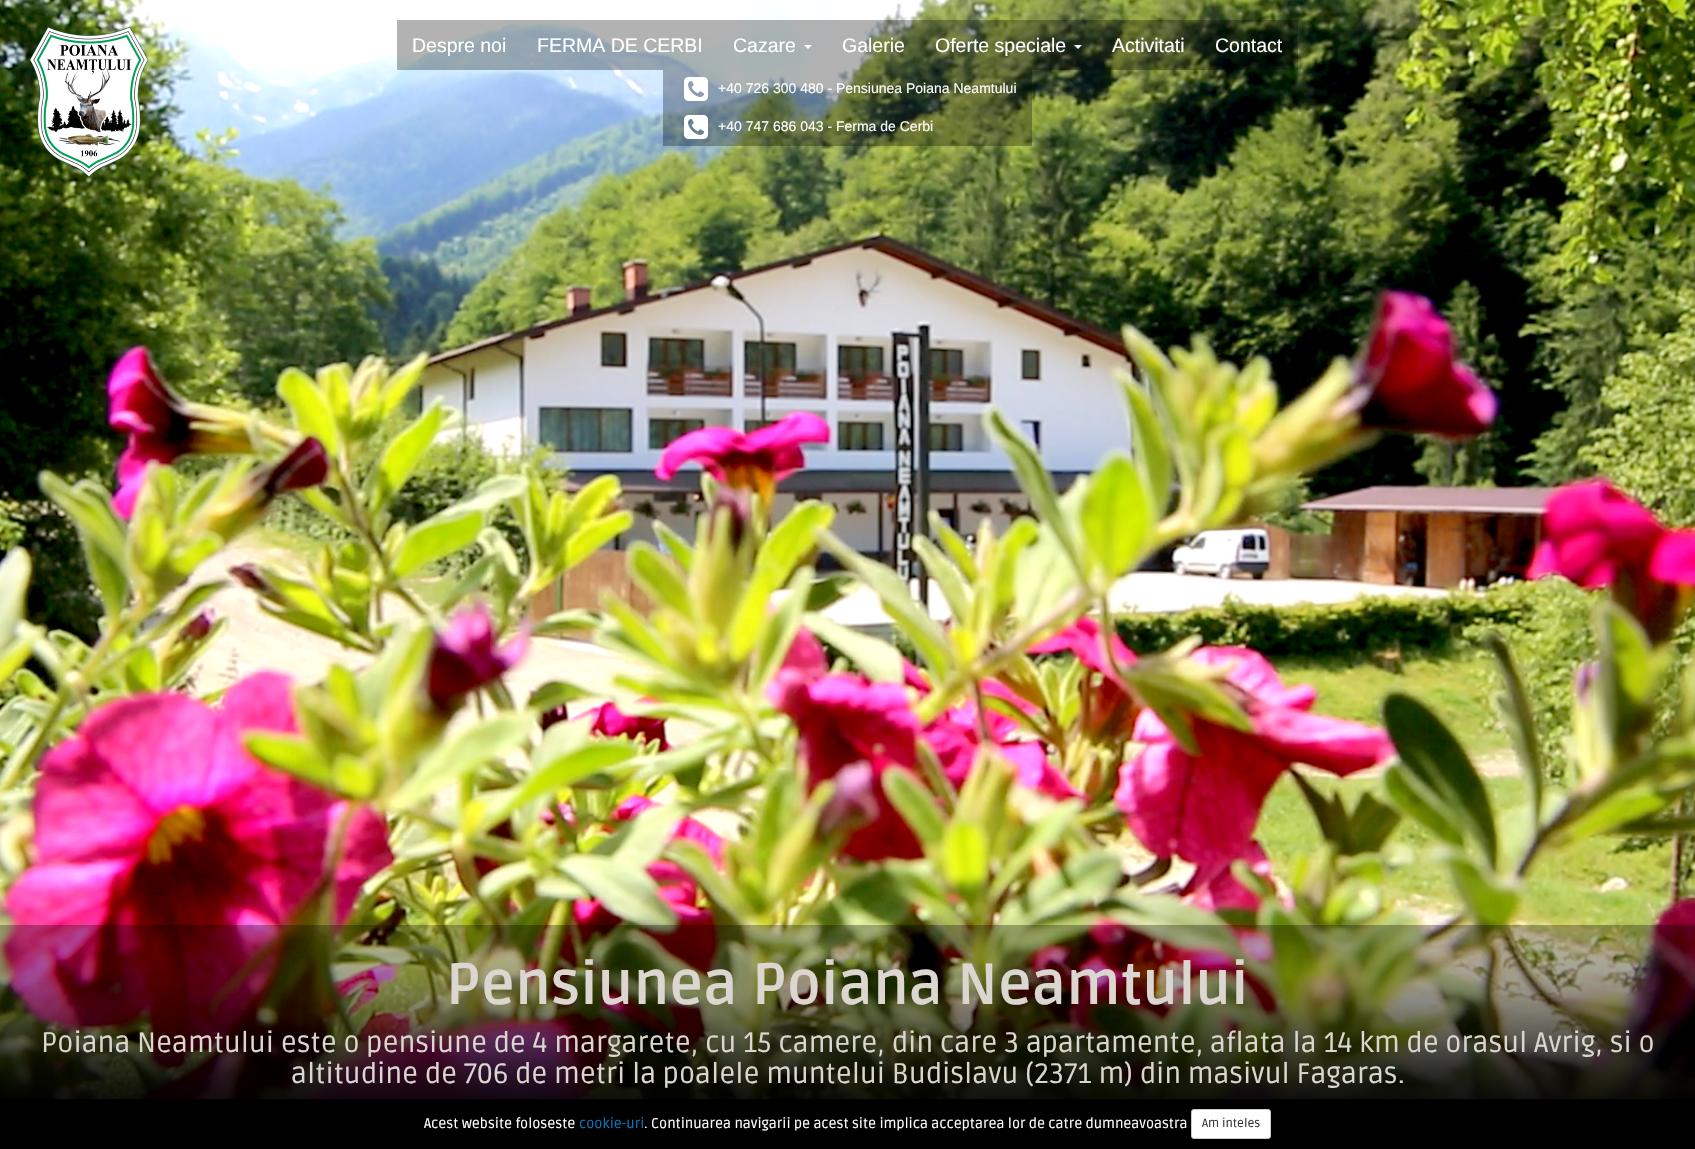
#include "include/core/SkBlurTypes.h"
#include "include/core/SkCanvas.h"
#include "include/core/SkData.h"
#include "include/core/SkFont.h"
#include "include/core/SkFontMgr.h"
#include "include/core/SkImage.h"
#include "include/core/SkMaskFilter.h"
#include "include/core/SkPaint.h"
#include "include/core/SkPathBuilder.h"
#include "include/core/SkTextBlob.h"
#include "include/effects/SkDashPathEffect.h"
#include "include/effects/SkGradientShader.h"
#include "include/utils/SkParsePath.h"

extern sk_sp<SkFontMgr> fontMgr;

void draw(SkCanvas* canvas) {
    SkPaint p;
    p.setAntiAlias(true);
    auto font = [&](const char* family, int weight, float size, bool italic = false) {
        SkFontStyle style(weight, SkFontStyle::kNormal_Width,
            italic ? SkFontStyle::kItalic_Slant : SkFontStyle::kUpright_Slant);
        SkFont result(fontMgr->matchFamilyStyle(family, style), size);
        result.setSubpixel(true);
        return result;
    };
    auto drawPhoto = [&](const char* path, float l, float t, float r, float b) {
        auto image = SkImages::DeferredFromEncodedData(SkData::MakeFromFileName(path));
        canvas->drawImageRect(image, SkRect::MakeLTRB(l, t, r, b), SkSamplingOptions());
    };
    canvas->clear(0xFFFFFFFF);
    drawPhoto("media/1.png", 0, 0, 1695, 1099);
    drawPhoto("media/2.png", 29, 26, 149, 177);
    p.setColor(0x4D000000);
    canvas->drawRect(SkRect::MakeLTRB(397, 20, 1298, 70), p);
    auto font1 = font("Liberation Sans", 400, 19.5f);
    p.setColor(0xFFFFFFFF);
    {
        const struct { const char* s; float x, y; } items[] = {
            {"Despre noi", 412, 52},
            {"FERMA DE CERBI", 537, 52},
            {"Cazare", 733, 52},
        };
        for (auto [s, x, y] : items) {
            canvas->drawString(s, x, y, font1, p);
        }
    }
    canvas->drawPath(SkPathBuilder().moveTo(804, 45).lineTo(812, 45).lineTo(808, 49).close().detach(), p);
    canvas->drawString("Galerie", 842, 52, font1, p);
    canvas->drawString("Oferte speciale", 935, 52, font1, p);
    canvas->drawPath(SkPathBuilder().moveTo(1074, 45).lineTo(1082, 45).lineTo(1078, 49).close().detach(), p);
    canvas->drawString("Activitati", 1112, 52, font1, p);
    canvas->drawString("Contact", 1215, 52, font1, p);
    p.setColor(0x4D000000);
    canvas->drawRect(SkRect::MakeLTRB(663, 70, 1032, 146), p);
    drawPhoto("media/3.png", 684, 77, 708, 101);
    auto font2 = font("Liberation Sans", 400, 14);
    p.setColor(0xFFFFFFFF);
    canvas->drawString("+40 726 300 480 - Pensiunea Poiana Neamtului", 718, 93, font2, p);
    drawPhoto("media/4.png", 684, 115, 708, 139);
    canvas->drawString("+40 747 686 043 - Ferma de Cerbi", 718, 131, font2, p);
    p.setColor(0x4D000000);
    canvas->drawRect(SkRect::MakeLTRB(0, 925, 1695, 1099), p);
    auto font3 = font("Ruda", 700, 58);
    p.setColor(0xFFDCD6D0);
    canvas->drawString("Pensiunea Poiana Neamtului", 446, 1004, font3, p);
    auto font4 = font("Ruda", 400, 28);
    canvas->drawString("Poiana Neamtului este o pensiune de 4 margarete, cu 15 camere, din care 3 apartamente, aflata la 14 km de orasul Avrig, si o", 41, 1052, font4, p);
    canvas->drawString("altitudine de 706 de metri la poalele muntelui Budislavu (2371 m) din masivul Fagaras.", 291, 1083, font4, p);
    p.setColor(0xFF000000);
    canvas->drawRect(SkRect::MakeLTRB(0, 1099, 1695, 1149), p);
    auto font5 = font("Ruda", 400, 14);
    p.setColor(0xFFFFFFFF);
    canvas->drawString("Acest website foloseste", 424, 1128, font5, p);
    p.setColor(0xFF0F75BC);
    canvas->drawString("cookie-uri", 579, 1128, font5, p);
    p.setColor(0xFFFFFFFF);
    canvas->drawString(". Continuarea navigarii pe acest site implica acceptarea lor de catre dumneavoastra", 644, 1128, font5, p);
    canvas->drawRoundRect(SkRect::MakeLTRB(1191.5f, 1109.5f, 1270.5f, 1138.5f), 2.5f, 2.5f, p);
    p.setStyle(SkPaint::kStroke_Style);
    p.setStrokeWidth(1);
    p.setColor(0xFFCCCCCC);
    canvas->drawRoundRect(SkRect::MakeLTRB(1191.5f, 1109.5f, 1270.5f, 1138.5f), 2.5f, 2.5f, p);
    auto font6 = font("Ruda", 400, 12);
    p.setStyle(SkPaint::kFill_Style);
    p.setColor(0xFF333333);
    canvas->drawString("Am inteles", 1202, 1127, font6, p);
}
